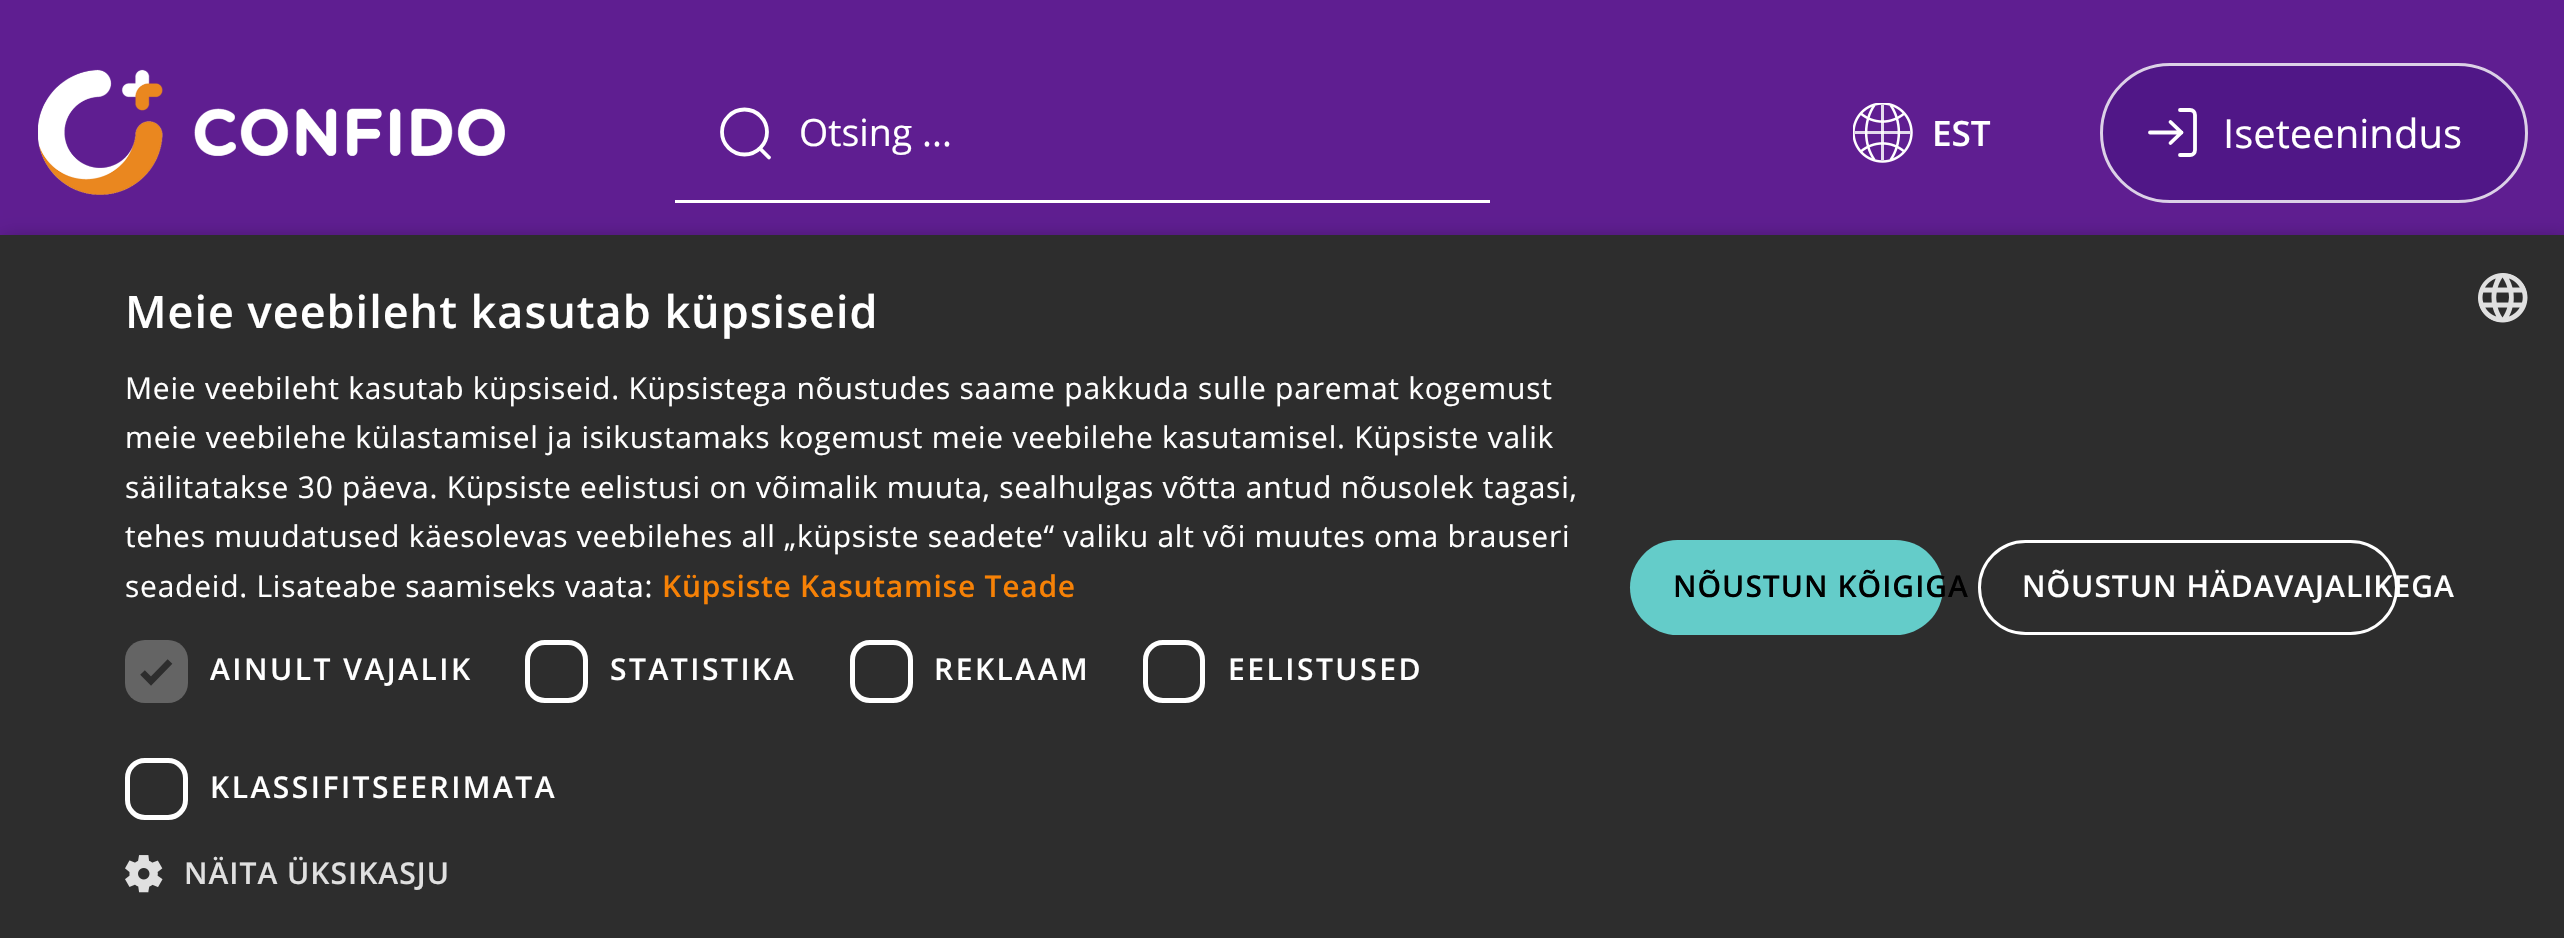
#include "include/core/SkBlurTypes.h"
#include "include/core/SkCanvas.h"
#include "include/core/SkData.h"
#include "include/core/SkFont.h"
#include "include/core/SkFontMgr.h"
#include "include/core/SkImage.h"
#include "include/core/SkMaskFilter.h"
#include "include/core/SkPaint.h"
#include "include/core/SkPathBuilder.h"
#include "include/core/SkTextBlob.h"
#include "include/effects/SkDashPathEffect.h"
#include "include/effects/SkGradientShader.h"
#include "include/utils/SkParsePath.h"

extern sk_sp<SkFontMgr> fontMgr;

void draw(SkCanvas* canvas) {
    SkPaint p;
    p.setAntiAlias(true);
    auto font = [&](const char* family, int weight, float size, bool italic = false) {
        SkFontStyle style(weight, SkFontStyle::kNormal_Width,
            italic ? SkFontStyle::kItalic_Slant : SkFontStyle::kUpright_Slant);
        SkFont result(fontMgr->matchFamilyStyle(family, style), size);
        result.setSubpixel(true);
        return result;
    };
    auto drawTracked = [&](const char* s, float x, float y, const SkFont& font, const SkPaint& ink, float letter, float word) {
        std::vector<SkGlyphID> glyphs(font.countText(s, strlen(s), SkTextEncoding::kUTF8));
        std::vector<float> xs(glyphs.size());
        font.textToGlyphs(s, strlen(s), SkTextEncoding::kUTF8, glyphs);
        font.getXPos(glyphs, xs, x);
        float extra = 0;
        for (size_t i = 0; i < glyphs.size(); i++) {
            xs[i] += extra;
            extra += letter + word * (glyphs[i] == font.unicharToGlyph(' '));
        }
        canvas->drawTextBlob(SkTextBlob::MakeFromPosHGlyphs(glyphs, xs, y, font), 0, 0, ink);
    };
    auto drawPhoto = [&](const char* path, float l, float t, float r, float b) {
        auto image = SkImages::DeferredFromEncodedData(SkData::MakeFromFileName(path));
        canvas->drawImageRect(image, SkRect::MakeLTRB(l, t, r, b), SkSamplingOptions());
    };
    canvas->clear(0xFF5F1E91);
    drawPhoto("media/1.png", 38, 69, 505, 195);
    p.setStyle(SkPaint::kStroke_Style);
    p.setStrokeWidth(3.8f);
    p.setColor(0xFFFFFFFF);
    canvas->drawCircle(744.5f, 132, 22.5f, p);
    p.setStrokeCap(SkPaint::kRound_Cap);
    p.setStrokeJoin(SkPaint::kRound_Join);
    canvas->drawPath(SkPathBuilder().moveTo(760, 148.5f).lineTo(769, 157.5f).detach(), p);
    p.setStyle(SkPaint::kFill_Style);
    canvas->drawRect(SkRect::MakeLTRB(675, 200, 1490, 203), p);
    auto font1 = font("Open Sans", 400, 37.5f);
    canvas->drawString("Otsing ...", 799, 146, font1, p);
    drawPhoto("media/2.png", 1853, 103, 1913, 163);
    auto font2 = font("Open Sans", 600, 35);
    canvas->drawString("EST", 1932, 146, font2, p);
    p.setColor(0xFF501787);
    canvas->drawRoundRect(SkRect::MakeLTRB(2101.5f, 64.5f, 2526.5f, 201.5f), 68.5f, 68.5f, p);
    p.setStyle(SkPaint::kStroke_Style);
    p.setStrokeWidth(3);
    p.setStrokeCap(SkPaint::kButt_Cap);
    p.setStrokeJoin(SkPaint::kMiter_Join);
    p.setColor(0xFFDCD1E7);
    canvas->drawRoundRect(SkRect::MakeLTRB(2101.5f, 64.5f, 2526.5f, 201.5f), 68.5f, 68.5f, p);
    p.setStrokeWidth(3.8f);
    p.setStrokeCap(SkPaint::kRound_Cap);
    p.setColor(0xFFFFFFFF);
    canvas->drawPath(SkPathBuilder().moveTo(2180, 110).lineTo(2190, 110).cubicTo(2193, 110, 2195, 112, 2195, 115).lineTo(2195, 150).cubicTo(2195, 153, 2193, 155, 2190, 155).lineTo(2180, 155).detach(), p);
    p.setStrokeJoin(SkPaint::kRound_Join);
    canvas->drawPath(SkPathBuilder().moveTo(2170.5f, 143).lineTo(2181.5f, 132.5f).moveTo(2181.5f, 132.5f).lineTo(2170.5f, 122).moveTo(2181.5f, 132.5f).lineTo(2150, 132.5f).detach(), p);
    auto font3 = font("Open Sans", 400, 40);
    p.setStyle(SkPaint::kFill_Style);
    canvas->drawString("Iseteenindus", 2223, 148, font3, p);
    p.setColor(0x59000000);
    p.setMaskFilter(SkMaskFilter::MakeBlur(kNormal_SkBlurStyle, 10));
    canvas->drawRect(SkRect::MakeLTRB(3, 240, 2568, 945), p);
    p.setMaskFilter(nullptr);
    p.setColor(0xFF2D2D2D);
    canvas->drawRect(SkRect::MakeLTRB(0, 235, 2564, 938), p);
    auto font4 = font("Open Sans", 600, 45);
    p.setColor(0xFFFFFFFF);
    drawTracked("Meie veebileht kasutab küpsiseid", 125, 328, font4, p, 1, 0);
    auto font5 = font("Open Sans", 400, 30);
    {
        const struct { const char* s; float x, y; } items[] = {
            {"Meie veebileht kasutab küpsiseid. Küpsistega nõustudes saame pakkuda sulle paremat kogemust", 125, 399},
            {"meie veebilehe külastamisel ja isikustamaks kogemust meie veebilehe kasutamisel. Küpsiste valik", 125, 448},
            {"säilitatakse 30 päeva. Küpsiste eelistusi on võimalik muuta, sealhulgas võtta antud nõusolek tagasi,", 125, 498},
            {"tehes muudatused käesolevas veebilehes all „küpsiste seadete“ valiku alt või muutes oma brauseri", 125, 547},
            {"seadeid. Lisateabe saamiseks vaata:", 125, 597},
        };
        for (auto [s, x, y] : items) {
            drawTracked(s, x, y, font5, p, 0.75f, 0);
        }
    }
    auto font6 = font("Open Sans", 600, 30);
    p.setColor(0xFFF68106);
    drawTracked("Küpsiste Kasutamise Teade", 662, 597, font6, p, 0.75f, 0);
    p.setColor(0xFF646464);
    canvas->drawRoundRect(SkRect::MakeLTRB(125, 640, 188, 703), 20, 20, p);
    p.setStyle(SkPaint::kStroke_Style);
    p.setStrokeWidth(6.6f);
    p.setStrokeCap(SkPaint::kButt_Cap);
    p.setStrokeJoin(SkPaint::kMiter_Join);
    p.setColor(0xFF2D2D2D);
    canvas->drawPath(SkPathBuilder().moveTo(142.5f, 672.5f).lineTo(151, 681).lineTo(170, 661.5f).detach(), p);
    p.setStyle(SkPaint::kFill_Style);
    p.setColor(0xFFFFFFFF);
    drawTracked("AINULT VAJALIK", 210, 680, font6, p, 2.5f, 0);
    p.setStyle(SkPaint::kStroke_Style);
    p.setStrokeWidth(5);
    canvas->drawRoundRect(SkRect::MakeLTRB(527.5f, 642.5f, 585.5f, 700.5f), 17.5f, 17.5f, p);
    p.setStyle(SkPaint::kFill_Style);
    drawTracked("STATISTIKA", 610, 680, font6, p, 2.5f, 0);
    p.setStyle(SkPaint::kStroke_Style);
    canvas->drawRoundRect(SkRect::MakeLTRB(852.5f, 642.5f, 910.5f, 700.5f), 17.5f, 17.5f, p);
    p.setStyle(SkPaint::kFill_Style);
    drawTracked("REKLAAM", 934, 680, font6, p, 2.5f, 0);
    p.setStyle(SkPaint::kStroke_Style);
    canvas->drawRoundRect(SkRect::MakeLTRB(1145.5f, 642.5f, 1202.5f, 700.5f), 17.5f, 17.5f, p);
    p.setStyle(SkPaint::kFill_Style);
    drawTracked("EELISTUSED", 1228, 680, font6, p, 2.5f, 0);
    p.setStyle(SkPaint::kStroke_Style);
    canvas->drawRoundRect(SkRect::MakeLTRB(127.5f, 760.5f, 185.5f, 817.5f), 17.5f, 17.5f, p);
    p.setStyle(SkPaint::kFill_Style);
    drawTracked("KLASSIFITSEERIMATA", 210, 798, font6, p, 2.5f, 0);
    drawPhoto("media/3.png", 125, 855, 163, 893);
    p.setColor(0xFFE0E0E0);
    drawTracked("NÄITA ÜKSIKASJU", 184, 884, font6, p, 1, 0);
    p.setColor(0xFF64CCC9);
    canvas->drawRoundRect(SkRect::MakeLTRB(1630, 540, 1943, 635), 47.5f, 47.5f, p);
    p.setColor(0xFF000000);
    drawTracked("NÕUSTUN KÕIGIGA", 1673, 597, font6, p, 1, 0);
    p.setStyle(SkPaint::kStroke_Style);
    p.setStrokeWidth(3);
    p.setColor(0xFFFFFFFF);
    canvas->drawRoundRect(SkRect::MakeLTRB(1979.5f, 541.5f, 2396.5f, 633.5f), 46, 46, p);
    p.setStyle(SkPaint::kFill_Style);
    drawTracked("NÕUSTUN HÄDAVAJALIKEGA", 2022, 597, font6, p, 1, 0);
    drawPhoto("media/4.png", 2478, 273, 2528, 323);
}
